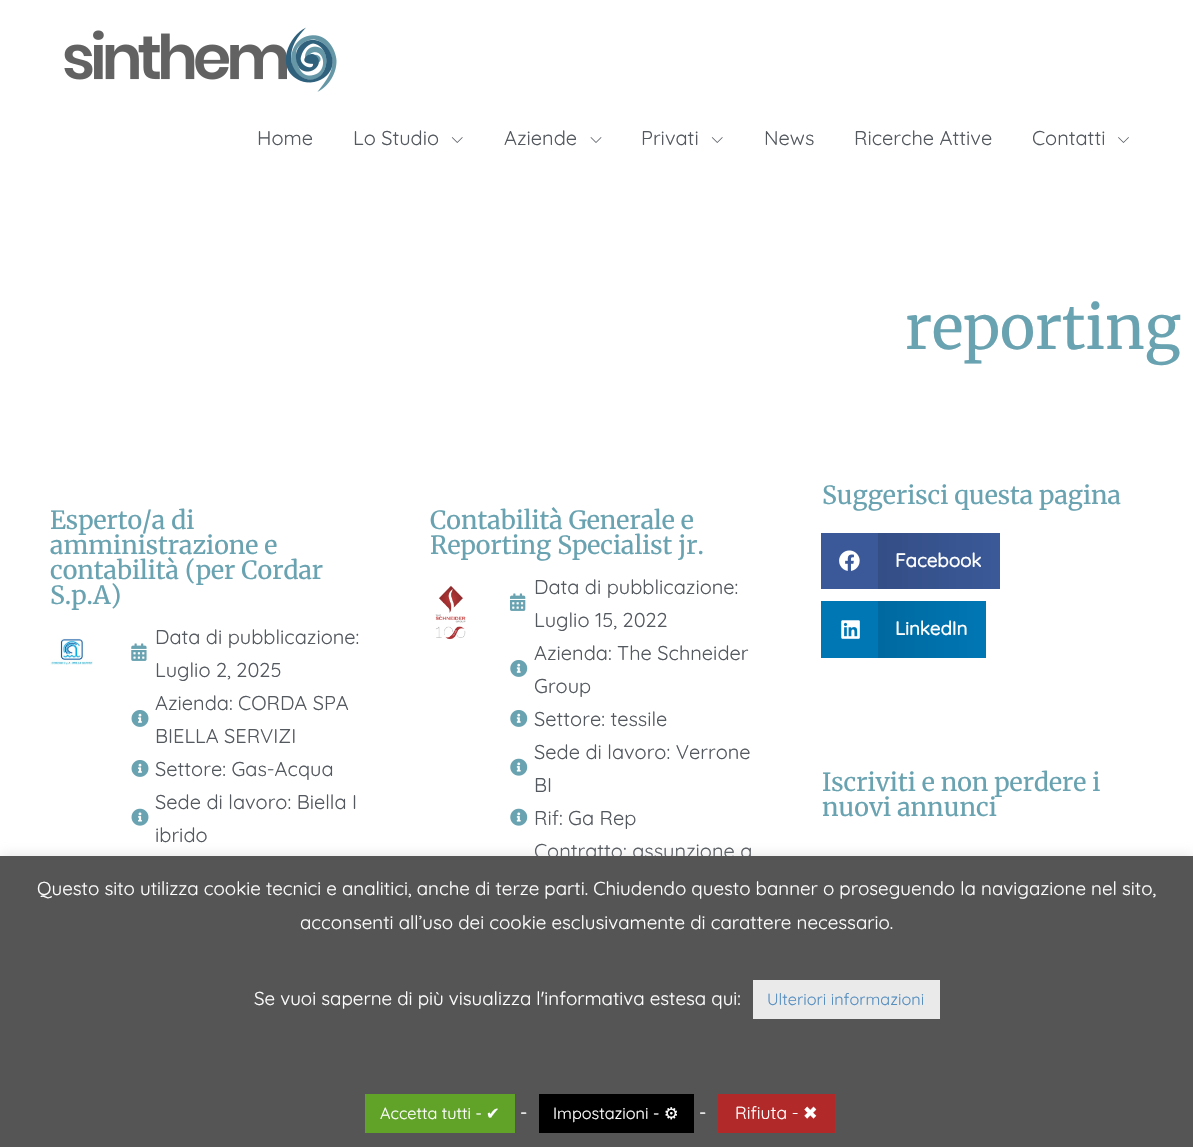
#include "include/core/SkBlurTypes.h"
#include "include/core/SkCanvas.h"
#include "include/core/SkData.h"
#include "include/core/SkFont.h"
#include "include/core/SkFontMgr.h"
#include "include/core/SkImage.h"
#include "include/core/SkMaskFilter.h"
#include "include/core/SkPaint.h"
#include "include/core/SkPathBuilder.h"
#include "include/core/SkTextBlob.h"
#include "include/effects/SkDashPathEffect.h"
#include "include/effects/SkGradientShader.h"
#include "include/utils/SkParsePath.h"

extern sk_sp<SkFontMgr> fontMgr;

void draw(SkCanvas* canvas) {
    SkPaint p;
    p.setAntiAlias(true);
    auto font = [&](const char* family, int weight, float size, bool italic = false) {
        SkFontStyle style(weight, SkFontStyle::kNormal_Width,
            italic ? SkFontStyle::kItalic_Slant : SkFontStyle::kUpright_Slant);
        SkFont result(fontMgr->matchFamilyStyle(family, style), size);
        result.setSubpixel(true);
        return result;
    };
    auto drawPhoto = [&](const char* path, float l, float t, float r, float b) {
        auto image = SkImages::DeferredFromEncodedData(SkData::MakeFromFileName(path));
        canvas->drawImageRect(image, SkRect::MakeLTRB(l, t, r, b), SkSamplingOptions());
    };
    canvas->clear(0xFFFFFFFF);
    drawPhoto("media/1.png", 64, 27, 337, 92);
    auto font1 = font("Quicksand", 300, 20);
    p.setColor(0xFF54595F);
    canvas->drawString("Home", 257, 145, font1, p);
    canvas->drawString("Lo Studio", 353, 145, font1, p);
    drawPhoto("media/2.png", 451, 137, 463, 143);
    canvas->drawString("Aziende", 504, 145, font1, p);
    drawPhoto("media/3.png", 590, 137, 602, 143);
    canvas->drawString("Privati", 641, 145, font1, p);
    drawPhoto("media/2.png", 711, 137, 723, 143);
    {
        const struct { const char* s; float x, y; } items[] = {
            {"News", 764, 145},
            {"Ricerche Attive", 854, 145},
            {"Contatti", 1032, 145},
        };
        for (auto [s, x, y] : items) {
            canvas->drawString(s, x, y, font1, p);
        }
    }
    drawPhoto("media/4.png", 1118, 137, 1129, 143);
    auto font2 = font("Merriweather", 300, 60);
    p.setColor(0xFF69A2B0);
    canvas->drawString("reporting", 905, 349, font2, p);
    auto font3 = font("Merriweather", 300, 25);
    {
        const struct { const char* s; float x, y; } items[] = {
            {"Esperto/a di", 50, 529},
            {"amministrazione e", 50, 554},
            {"contabilità (per Cordar", 50, 579},
            {"S.p.A)", 50, 604},
        };
        for (auto [s, x, y] : items) {
            canvas->drawString(s, x, y, font3, p);
        }
    }
    drawPhoto("media/5.png", 50, 638, 93, 665);
    drawPhoto("media/6.png", 131, 643, 147, 661);
    p.setColor(0xFF54595F);
    canvas->drawString("Data di pubblicazione:", 155, 644, font1, p);
    canvas->drawString("Luglio 2, 2025", 155, 677, font1, p);
    drawPhoto("media/7.png", 131, 710, 149, 727);
    canvas->drawString("Azienda: CORDA SPA", 155, 710, font1, p);
    canvas->drawString("BIELLA SERVIZI", 155, 743, font1, p);
    drawPhoto("media/7.png", 131, 760, 149, 777);
    canvas->drawString("Settore: Gas-Acqua", 155, 776, font1, p);
    drawPhoto("media/8.png", 131, 808, 149, 826);
    canvas->drawString("Sede di lavoro: Biella I", 155, 809, font1, p);
    canvas->drawString("ibrido", 155, 842, font1, p);
    p.setColor(0xFF69A2B0);
    canvas->drawString("Contabilità Generale e", 430, 529, font3, p);
    canvas->drawString("Reporting Specialist jr.", 430, 554, font3, p);
    drawPhoto("media/9.png", 435, 585, 466, 640);
    drawPhoto("media/10.png", 510, 593, 526, 611);
    p.setColor(0xFF54595F);
    canvas->drawString("Data di pubblicazione:", 534, 594, font1, p);
    canvas->drawString("Luglio 15, 2022", 534, 627, font1, p);
    drawPhoto("media/11.png", 510, 660, 528, 677);
    canvas->drawString("Azienda: The Schneider", 534, 660, font1, p);
    canvas->drawString("Group", 534, 693, font1, p);
    drawPhoto("media/11.png", 510, 710, 528, 727);
    canvas->drawString("Settore: tessile", 534, 726, font1, p);
    drawPhoto("media/12.png", 510, 758, 528, 776);
    canvas->drawString("Sede di lavoro: Verrone", 534, 759, font1, p);
    canvas->drawString("BI", 534, 792, font1, p);
    drawPhoto("media/12.png", 510, 808, 528, 826);
    canvas->drawString("Rif: Ga Rep", 534, 825, font1, p);
    canvas->drawString("Contratto: assunzione a", 534, 858, font1, p);
    p.setColor(0xFF69A2B0);
    canvas->drawString("Suggerisci questa pagina", 822, 504, font3, p);
    p.setColor(0xFF3B5998);
    canvas->drawRect(SkRect::MakeLTRB(821, 533, 878, 589), p);
    drawPhoto("media/13.png", 839, 550, 860, 571);
    {
        const SkColor colors[] = {0xFF344E86, 0xFF3B5998};
        const float stops[] = {0, 1};
        const SkPoint ends[] = {{878, 561}, {1000, 561}};
        p.setShader(SkGradientShader::MakeLinear(ends, colors, stops, 2, SkTileMode::kClamp));
        p.setAlpha(255);
    }
    canvas->drawRect(SkRect::MakeLTRB(878, 533, 1000, 589), p);
    auto font4 = font("Quicksand", 700, 18.75f);
    p.setShader(nullptr);
    p.setColor(0xFFFFFFFF);
    canvas->drawString("Facebook", 895, 567, font4, p);
    p.setColor(0xFF0077B5);
    canvas->drawRect(SkRect::MakeLTRB(821, 601, 878, 658), p);
    drawPhoto("media/14.png", 841, 620, 860, 639);
    {
        const SkColor colors[] = {0xFF00699F, 0xFF0077B5};
        const float stops[] = {0, 1};
        const SkPoint ends[] = {{878, 629}, {986, 629}};
        p.setShader(SkGradientShader::MakeLinear(ends, colors, stops, 2, SkTileMode::kClamp));
        p.setAlpha(255);
    }
    canvas->drawRect(SkRect::MakeLTRB(878, 601, 986, 658), p);
    p.setShader(nullptr);
    p.setColor(0xFFFFFFFF);
    canvas->drawString("LinkedIn", 895, 635, font4, p);
    p.setColor(0xFF69A2B0);
    canvas->drawString("Iscriviti e non perdere i", 822, 791, font3, p);
    canvas->drawString("nuovi annunci", 822, 816, font3, p);
    p.setColor(0x4DACABAB);
    p.setMaskFilter(SkMaskFilter::MakeBlur(kNormal_SkBlurStyle, 6));
    canvas->drawRect(SkRect::MakeLTRB(0, 855, 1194, 1146), p);
    p.setMaskFilter(nullptr);
    p.setColor(0xFF555555);
    canvas->drawRect(SkRect::MakeLTRB(0, 856, 1193, 1147), p);
    auto font5 = font("Quicksand", 300, 18.75f);
    p.setColor(0xFFFFFFFF);
    {
        const struct { const char* s; float x, y; } items[] = {
            {"Questo sito utilizza cookie tecnici e analitici, anche di terze parti. Chiudendo questo banner o proseguendo la navigazione nel sito,", 37, 895},
            {"acconsenti all’uso dei cookie esclusivamente di carattere necessario.", 300, 929},
            {"Se vuoi saperne di più visualizza l'informativa estesa qui:", 254, 1005},
        };
        for (auto [s, x, y] : items) {
            canvas->drawString(s, x, y, font5, p);
        }
    }
    p.setColor(0xFFEAEAEA);
    canvas->drawRect(SkRect::MakeLTRB(753, 980, 940, 1019), p);
    auto font6 = font("Quicksand", 300, 16.25f);
    p.setColor(0xFF568EBF);
    canvas->drawString("Ulteriori informazioni", 767, 1005, font6, p);
    p.setColor(0xFF61A229);
    canvas->drawRect(SkRect::MakeLTRB(365, 1094, 515, 1133), p);
    p.setColor(0xFFFFFFFF);
    canvas->drawString("Accetta tutti -", 380, 1119, font6, p);
    auto font7 = font("DejaVu Sans", 400, 16.25f);
    canvas->drawString("✔", 486, 1119, font7, p);
    canvas->drawString("-", 520, 1119, font5, p);
    p.setColor(0xFF000000);
    canvas->drawRect(SkRect::MakeLTRB(539, 1094, 694, 1133), p);
    p.setColor(0xFFFFFFFF);
    canvas->drawString("Impostazioni -", 553, 1119, font6, p);
    canvas->drawString("⚙", 664, 1119, font7, p);
    canvas->drawString("-", 699, 1119, font5, p);
    p.setColor(0xFFB22929);
    canvas->drawRect(SkRect::MakeLTRB(718, 1094, 835, 1133), p);
    auto font8 = font("Quicksand", 300, 17.5f);
    p.setColor(0xFFFFFFFF);
    canvas->drawString("Rifiuta -", 735, 1119, font8, p);
    auto font9 = font("DejaVu Sans", 400, 17.5f);
    canvas->drawString("✖", 803, 1119, font9, p);
}
